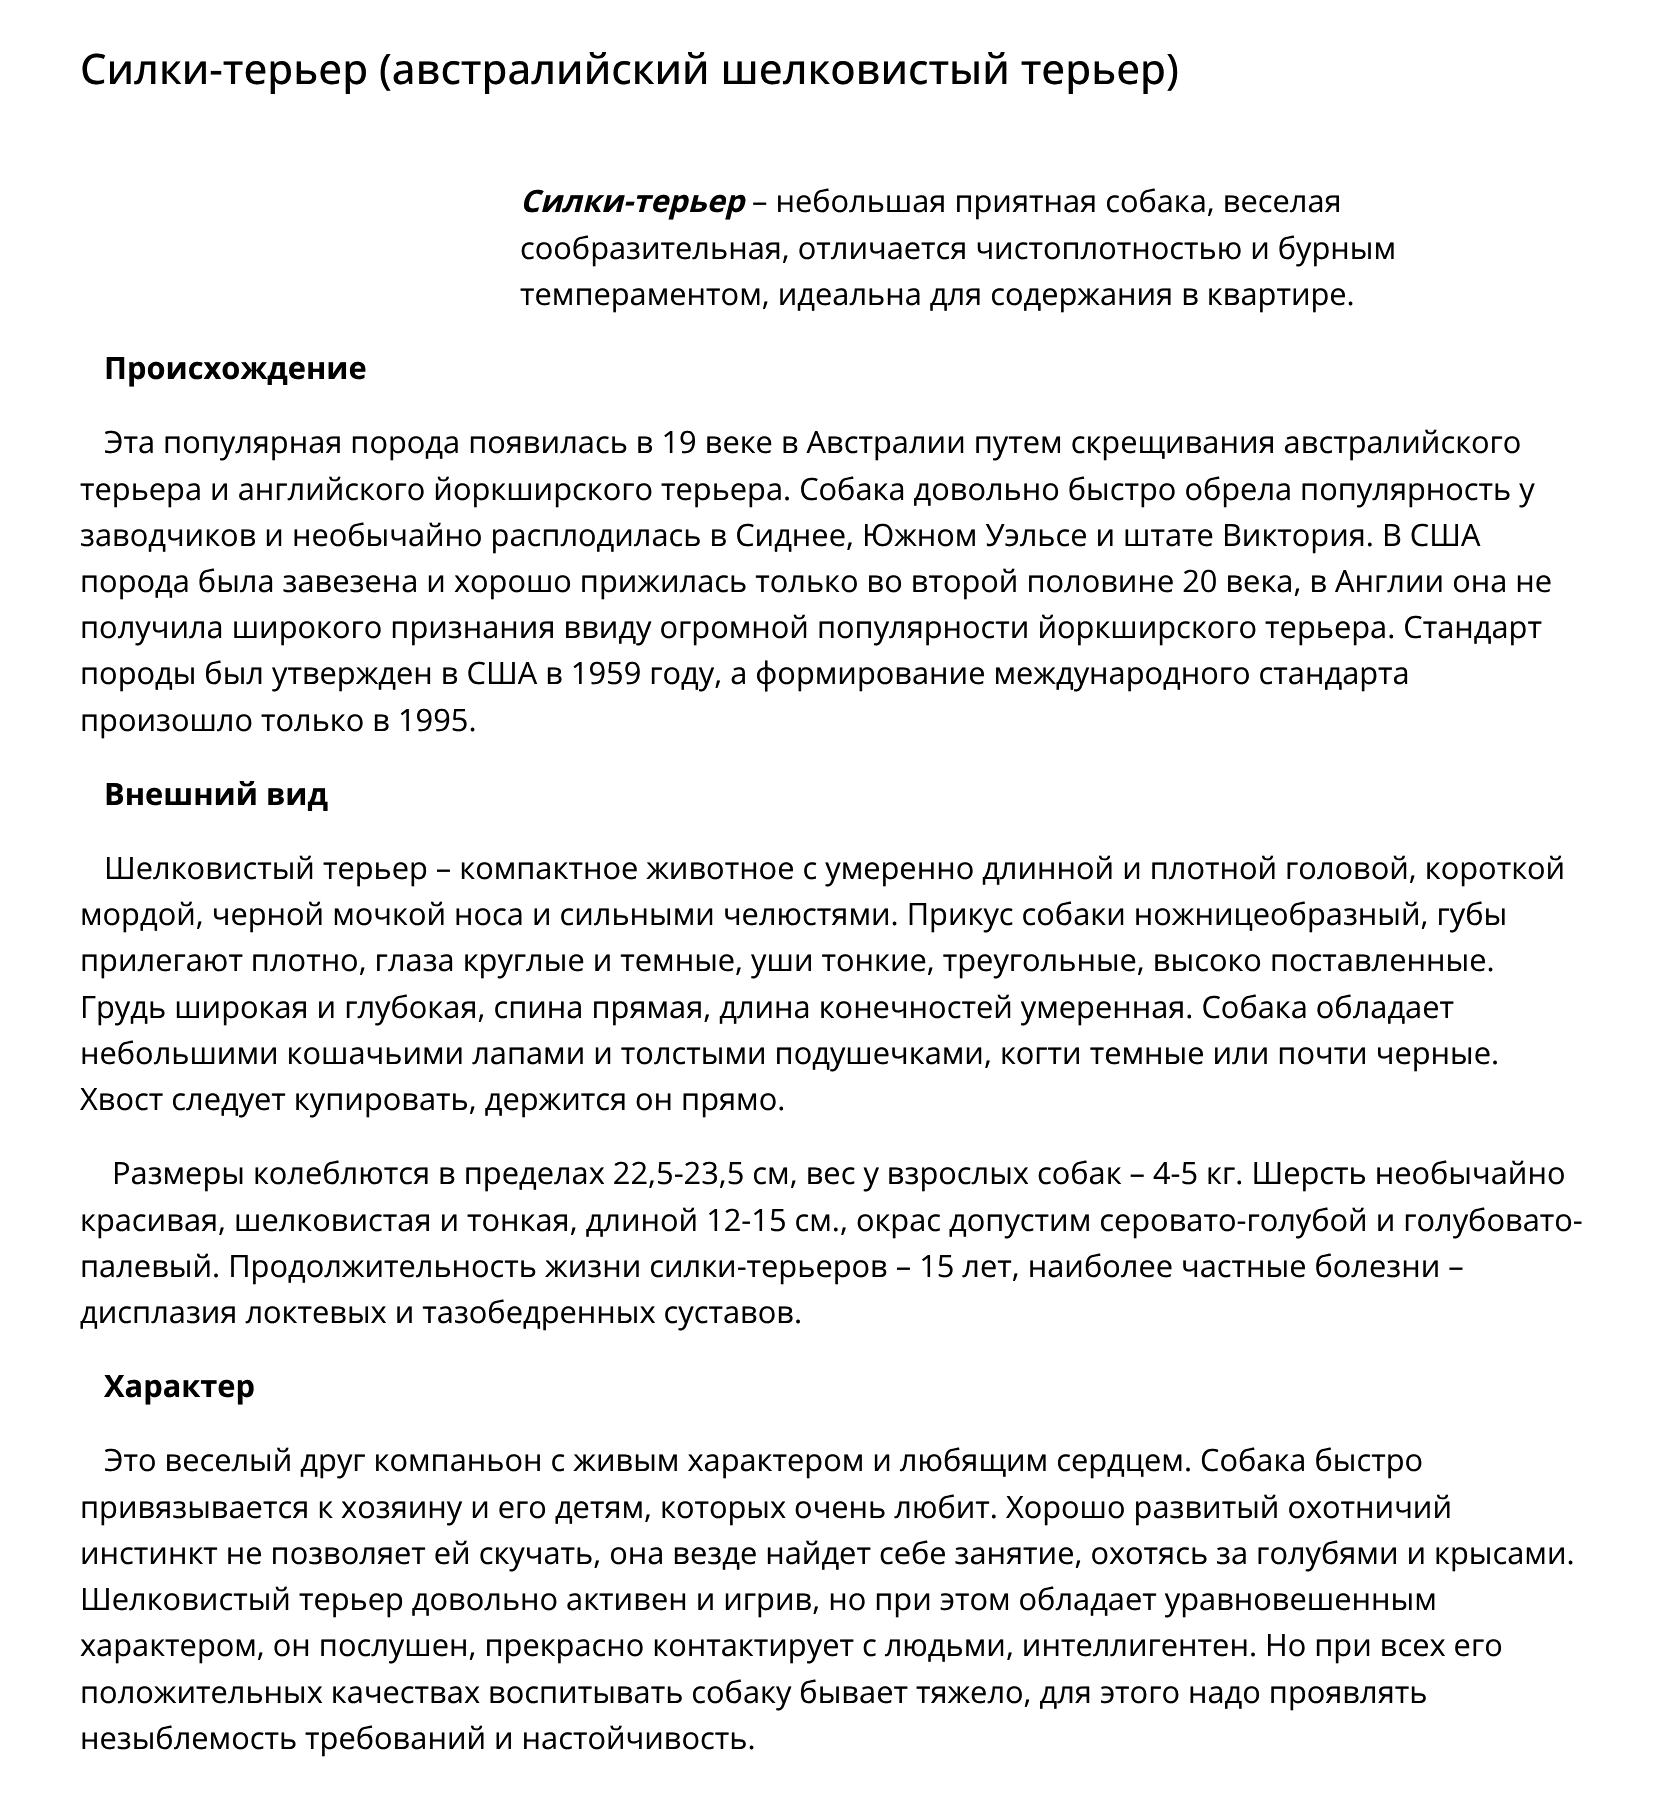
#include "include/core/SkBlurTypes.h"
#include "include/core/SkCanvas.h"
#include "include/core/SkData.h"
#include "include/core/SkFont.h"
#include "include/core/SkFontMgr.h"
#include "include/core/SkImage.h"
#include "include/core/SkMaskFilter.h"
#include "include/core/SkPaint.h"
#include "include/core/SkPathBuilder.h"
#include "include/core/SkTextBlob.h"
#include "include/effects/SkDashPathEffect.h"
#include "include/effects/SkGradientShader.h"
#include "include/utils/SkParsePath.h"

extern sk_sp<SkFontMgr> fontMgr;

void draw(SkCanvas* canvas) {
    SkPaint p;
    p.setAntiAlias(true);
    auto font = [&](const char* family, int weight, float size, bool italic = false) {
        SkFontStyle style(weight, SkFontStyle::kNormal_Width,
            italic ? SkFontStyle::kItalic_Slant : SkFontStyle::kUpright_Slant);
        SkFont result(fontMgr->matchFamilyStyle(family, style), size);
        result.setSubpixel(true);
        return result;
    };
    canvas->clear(0xFFFFFFFF);
    auto font1 = font("Open Sans", 500, 42);
    p.setColor(0xFF000000);
    canvas->drawString("Силки-терьер (австралийский шелковистый терьер)", 80, 84, font1, p);
    auto font2 = font("Open Sans", 700, 30.8f, true);
    canvas->drawString("Силки-терьер", 520, 212, font2, p);
    auto font3 = font("Open Sans", 400, 30.8f);
    {
        const struct { const char* s; float x, y; } items[] = {
            {"– небольшая приятная собака, веселая", 752, 212},
            {"сообразительная, отличается чистоплотностью и бурным", 520, 259},
            {"темпераментом, идеальна для содержания в квартире.", 520, 305},
        };
        for (auto [s, x, y] : items) {
            canvas->drawString(s, x, y, font3, p);
        }
    }
    auto font4 = font("Open Sans", 700, 30.8f);
    canvas->drawString("Происхождение", 104, 379, font4, p);
    {
        const struct { const char* s; float x, y; } items[] = {
            {"Эта популярная порода появилась в 19 веке в Австралии путем скрещивания австралийского", 104, 453},
            {"терьера и английского йоркширского терьера. Собака довольно быстро обрела популярность у", 80, 500},
            {"заводчиков и необычайно расплодилась в Сиднее, Южном Уэльсе и штате Виктория. В США", 80, 546},
            {"порода была завезена и хорошо прижилась только во второй половине 20 века, в Англии она не", 80, 592},
            {"получила широкого признания ввиду огромной популярности йоркширского терьера. Стандарт", 80, 638},
            {"породы был утвержден в США в 1959 году, а формирование международного стандарта", 80, 684},
            {"произошло только в 1995.", 80, 731},
        };
        for (auto [s, x, y] : items) {
            canvas->drawString(s, x, y, font3, p);
        }
    }
    canvas->drawString("Внешний вид", 104, 805, font4, p);
    {
        const struct { const char* s; float x, y; } items[] = {
            {"Шелковистый терьер – компактное животное с умеренно длинной и плотной головой, короткой", 104, 879},
            {"мордой, черной мочкой носа и сильными челюстями. Прикус собаки ножницеобразный, губы", 80, 925},
            {"прилегают плотно, глаза круглые и темные, уши тонкие, треугольные, высоко поставленные.", 80, 971},
            {"Грудь широкая и глубокая, спина прямая, длина конечностей умеренная. Собака обладает", 80, 1018},
            {"небольшими кошачьими лапами и толстыми подушечками, когти темные или почти черные.", 80, 1064},
            {"Хвост следует купировать, держится он прямо.", 80, 1110},
            {"Размеры колеблются в пределах 22,5-23,5 см, вес у взрослых собак – 4-5 кг. Шерсть необычайно", 112, 1184},
            {"красивая, шелковистая и тонкая, длиной 12-15 см., окрас допустим серовато-голубой и голубовато-", 80, 1231},
            {"палевый. Продолжительность жизни силки-терьеров – 15 лет, наиболее частные болезни –", 80, 1277},
            {"дисплазия локтевых и тазобедренных суставов.", 80, 1323},
        };
        for (auto [s, x, y] : items) {
            canvas->drawString(s, x, y, font3, p);
        }
    }
    canvas->drawString("Характер", 104, 1397, font4, p);
    {
        const struct { const char* s; float x, y; } items[] = {
            {"Это веселый друг компаньон с живым характером и любящим сердцем. Собака быстро", 104, 1471},
            {"привязывается к хозяину и его детям, которых очень любит. Хорошо развитый охотничий", 80, 1518},
            {"инстинкт не позволяет ей скучать, она везде найдет себе занятие, охотясь за голубями и крысами.", 80, 1564},
            {"Шелковистый терьер довольно активен и игрив, но при этом обладает уравновешенным", 80, 1610},
            {"характером, он послушен, прекрасно контактирует с людьми, интеллигентен. Но при всех его", 80, 1656},
            {"положительных качествах воспитывать собаку бывает тяжело, для этого надо проявлять", 80, 1703},
            {"незыблемость требований и настойчивость.", 80, 1749},
        };
        for (auto [s, x, y] : items) {
            canvas->drawString(s, x, y, font3, p);
        }
    }
}
